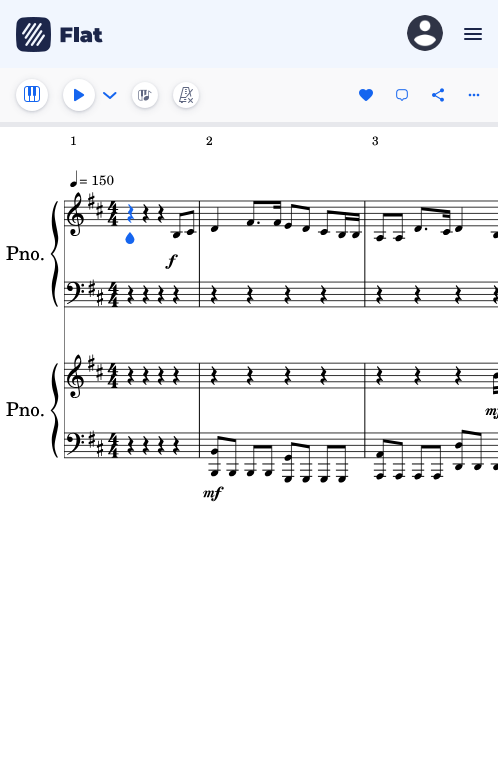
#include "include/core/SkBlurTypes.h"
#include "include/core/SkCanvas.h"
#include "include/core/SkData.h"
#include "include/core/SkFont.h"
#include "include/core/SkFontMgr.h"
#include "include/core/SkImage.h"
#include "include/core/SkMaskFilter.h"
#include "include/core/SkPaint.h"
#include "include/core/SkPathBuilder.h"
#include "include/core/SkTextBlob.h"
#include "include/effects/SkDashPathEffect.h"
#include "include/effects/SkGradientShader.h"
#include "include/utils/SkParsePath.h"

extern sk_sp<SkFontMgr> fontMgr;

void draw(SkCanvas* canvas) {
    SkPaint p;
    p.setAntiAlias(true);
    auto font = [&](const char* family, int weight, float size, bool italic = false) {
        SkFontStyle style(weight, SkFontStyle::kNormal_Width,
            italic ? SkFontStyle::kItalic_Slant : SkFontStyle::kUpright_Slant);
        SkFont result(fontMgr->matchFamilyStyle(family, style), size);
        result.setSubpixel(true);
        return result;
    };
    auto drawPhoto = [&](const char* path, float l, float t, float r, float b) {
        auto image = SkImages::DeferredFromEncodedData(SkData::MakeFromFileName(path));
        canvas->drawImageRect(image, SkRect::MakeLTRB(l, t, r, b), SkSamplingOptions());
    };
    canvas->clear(0xFFFFFFFF);
    p.setColor(0xFFF1F6FE);
    canvas->drawRect(SkRect::MakeLTRB(0, 0, 498, 68), p);
    drawPhoto("media/1.png", 16, 17, 103, 52);
    p.setColor(0xFFFFFFFF);
    canvas->drawCircle(425, 33, 18, p);
    drawPhoto("media/2.png", 407, 15, 443, 51);
    p.setColor(0xFF1C264A);
    canvas->drawRoundRect(SkRect::MakeLTRB(464, 28, 482, 30), 1, 1, p);
    canvas->drawRoundRect(SkRect::MakeLTRB(464, 33, 482, 35), 1, 1, p);
    canvas->drawRoundRect(SkRect::MakeLTRB(464, 38, 482, 40), 1, 1, p);
    p.setColor(0xFFF9F9FA);
    canvas->drawRect(SkRect::MakeLTRB(0, 68, 498, 122), p);
    p.setColor(0x1A28304F);
    p.setMaskFilter(SkMaskFilter::MakeBlur(kNormal_SkBlurStyle, 4));
    canvas->drawRoundRect(SkRect::MakeLTRB(63, 81, 95, 113), 16, 16, p);
    p.setMaskFilter(nullptr);
    p.setMaskFilter(SkMaskFilter::MakeBlur(kNormal_SkBlurStyle, 4));
    canvas->drawRoundRect(SkRect::MakeLTRB(132, 84, 158, 110), 13, 13, p);
    p.setMaskFilter(nullptr);
    p.setMaskFilter(SkMaskFilter::MakeBlur(kNormal_SkBlurStyle, 4));
    canvas->drawRoundRect(SkRect::MakeLTRB(173, 84, 199, 110), 13, 13, p);
    p.setMaskFilter(nullptr);
    p.setColor(0xFFE7E8EC);
    canvas->drawRect(SkRect::MakeLTRB(0, 122, 498, 127), p);
    p.setColor(0x1A28304F);
    p.setMaskFilter(SkMaskFilter::MakeBlur(kNormal_SkBlurStyle, 4));
    canvas->drawRoundRect(SkRect::MakeLTRB(16, 80, 48, 112), 16, 16, p);
    p.setMaskFilter(nullptr);
    p.setColor(0x3328304F);
    p.setMaskFilter(SkMaskFilter::MakeBlur(kNormal_SkBlurStyle, 1.5f));
    canvas->drawRoundRect(SkRect::MakeLTRB(16, 80, 48, 112), 16, 16, p);
    p.setMaskFilter(nullptr);
    p.setColor(0xFFFFFFFF);
    canvas->drawCircle(32, 95, 16, p);
    drawPhoto("media/3.png", 24, 86, 40, 102);
    p.setColor(0x3328304F);
    p.setMaskFilter(SkMaskFilter::MakeBlur(kNormal_SkBlurStyle, 1.5f));
    canvas->drawRoundRect(SkRect::MakeLTRB(63, 80, 95, 112), 16, 16, p);
    p.setMaskFilter(nullptr);
    p.setColor(0xFFFFFFFF);
    canvas->drawCircle(79, 95, 16, p);
    drawPhoto("media/4.png", 74, 88, 85, 102);
    p.setStyle(SkPaint::kStroke_Style);
    p.setStrokeWidth(2);
    p.setStrokeCap(SkPaint::kRound_Cap);
    p.setStrokeJoin(SkPaint::kRound_Join);
    p.setColor(0xFF1565EF);
    canvas->drawPath(SkPathBuilder().moveTo(104, 93).lineTo(110, 98).lineTo(115.5f, 93).detach(), p);
    p.setStyle(SkPaint::kFill_Style);
    p.setColor(0x3328304F);
    p.setMaskFilter(SkMaskFilter::MakeBlur(kNormal_SkBlurStyle, 1.5f));
    canvas->drawRoundRect(SkRect::MakeLTRB(132, 83, 158, 109), 13, 13, p);
    p.setMaskFilter(nullptr);
    p.setColor(0xFFFFFFFF);
    canvas->drawCircle(145, 95, 13, p);
    drawPhoto("media/5.png", 138, 89, 152, 101);
    p.setColor(0x3328304F);
    p.setMaskFilter(SkMaskFilter::MakeBlur(kNormal_SkBlurStyle, 1.5f));
    canvas->drawRoundRect(SkRect::MakeLTRB(173, 83, 199, 109), 13, 13, p);
    p.setMaskFilter(nullptr);
    p.setColor(0xFFFFFFFF);
    canvas->drawCircle(186, 95, 13, p);
    drawPhoto("media/6.png", 179, 87, 193, 103);
    drawPhoto("media/7.png", 359, 89, 373, 101);
    drawPhoto("media/8.png", 396, 89, 408, 101);
    drawPhoto("media/9.png", 432, 88, 444, 102);
    drawPhoto("media/10.png", 468, 93, 480, 97);
    auto font1 = font("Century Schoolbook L", 400, 12);
    p.setColor(0xFF000000);
    {
        const struct { const char* s; float x, y; } items[] = {
            {"1", 70, 145},
            {"2", 206, 145},
            {"3", 372, 145},
        };
        for (auto [s, x, y] : items) {
            canvas->drawString(s, x, y, font1, p);
        }
    }
    {
        const SkColor colors[] = {0xFF919191, 0xFFFFFFFF};
        const float stops[] = {0, 1};
        SkMatrix m = SkMatrix::Translate(64, 465).preScale(11, 313);
        p.setShader(SkGradientShader::MakeRadial({0, 0}, 1, colors, stops, 2, SkTileMode::kClamp, 0, &m));
        p.setAlpha(255);
    }
    canvas->drawRect(SkRect::MakeLTRB(73, 322, 75, 608), p);
    {
        const SkColor colors[] = {0xFFFFFFFF, 0xFFFFFFFF, 0x80FFFFFF};
        const float stops[] = {0, 0.02f, 0.05f};
        const SkPoint ends[] = {{64, 465}, {498, 465}};
        p.setShader(SkGradientShader::MakeLinear(ends, colors, stops, 3, SkTileMode::kClamp));
        p.setAlpha(255);
    }
    canvas->drawRect(SkRect::MakeLTRB(73, 322, 75, 608), p);
    drawPhoto("media/11.png", 64, 170, 498, 502);
    drawPhoto("media/12.png", 50, 201, 59, 458);
    auto font2 = font("Century Schoolbook L", 400, 19);
    p.setShader(nullptr);
    p.setColor(0xFF000000);
    canvas->drawString("Pno.", 6, 260, font2, p);
    canvas->drawString("Pno.", 6, 416, font2, p);
}
